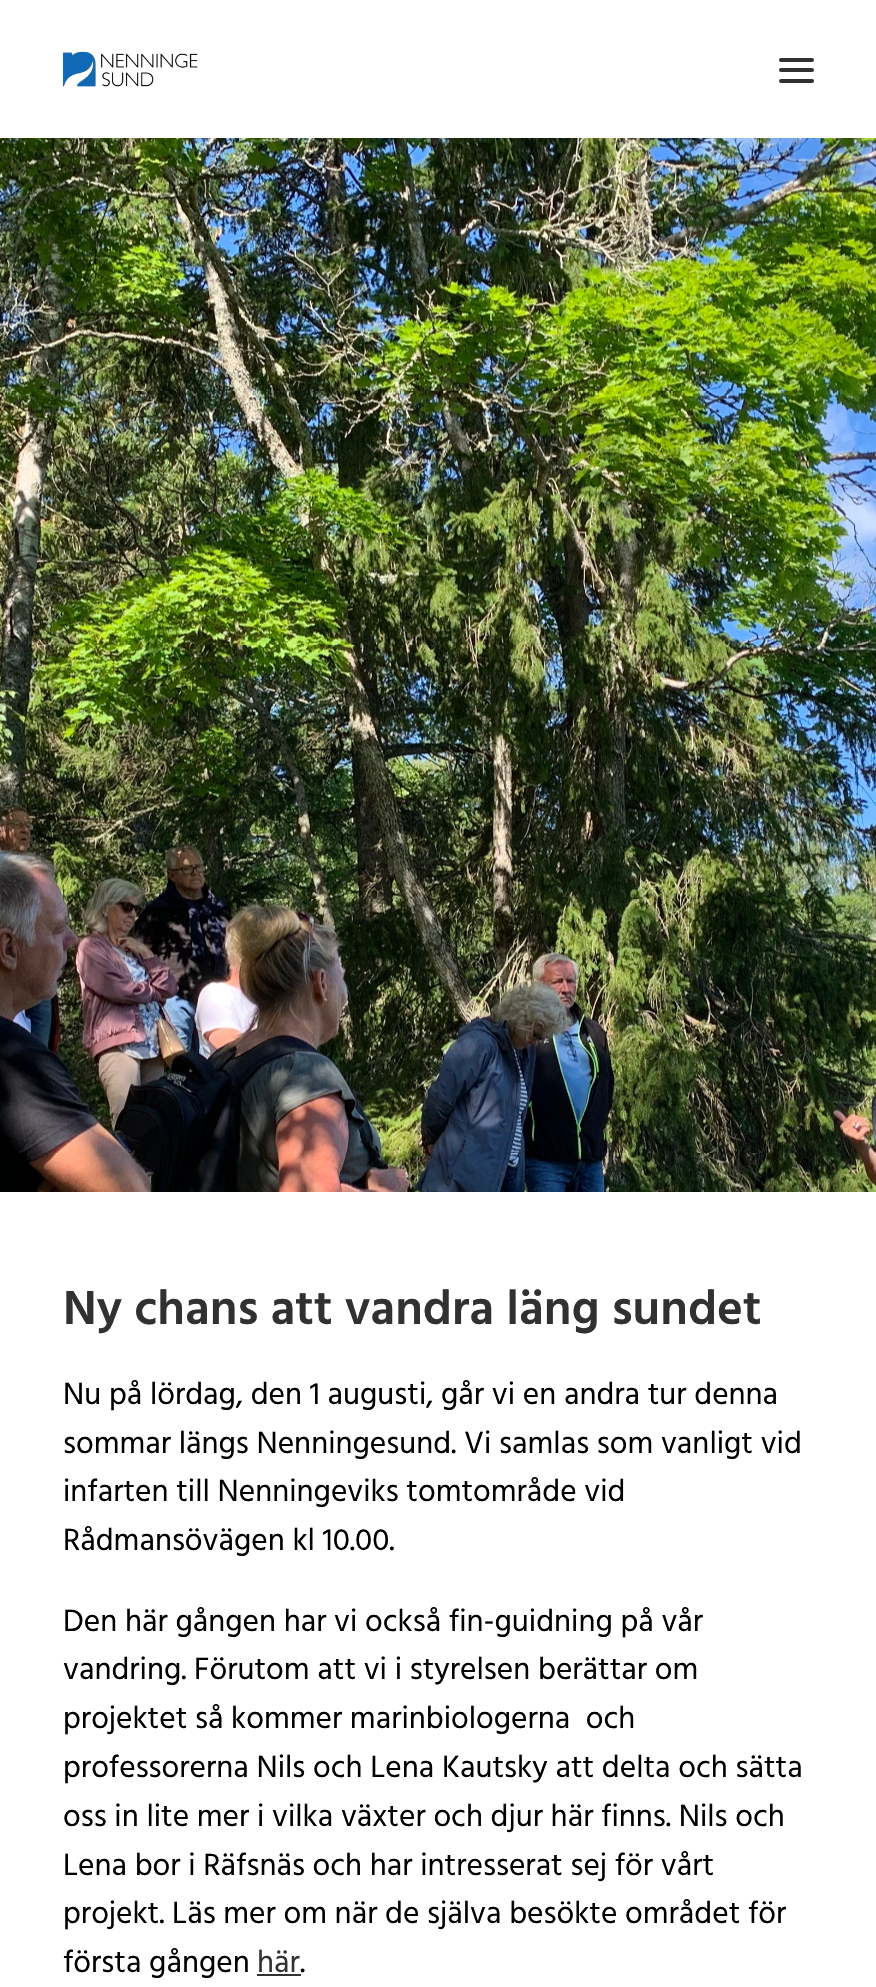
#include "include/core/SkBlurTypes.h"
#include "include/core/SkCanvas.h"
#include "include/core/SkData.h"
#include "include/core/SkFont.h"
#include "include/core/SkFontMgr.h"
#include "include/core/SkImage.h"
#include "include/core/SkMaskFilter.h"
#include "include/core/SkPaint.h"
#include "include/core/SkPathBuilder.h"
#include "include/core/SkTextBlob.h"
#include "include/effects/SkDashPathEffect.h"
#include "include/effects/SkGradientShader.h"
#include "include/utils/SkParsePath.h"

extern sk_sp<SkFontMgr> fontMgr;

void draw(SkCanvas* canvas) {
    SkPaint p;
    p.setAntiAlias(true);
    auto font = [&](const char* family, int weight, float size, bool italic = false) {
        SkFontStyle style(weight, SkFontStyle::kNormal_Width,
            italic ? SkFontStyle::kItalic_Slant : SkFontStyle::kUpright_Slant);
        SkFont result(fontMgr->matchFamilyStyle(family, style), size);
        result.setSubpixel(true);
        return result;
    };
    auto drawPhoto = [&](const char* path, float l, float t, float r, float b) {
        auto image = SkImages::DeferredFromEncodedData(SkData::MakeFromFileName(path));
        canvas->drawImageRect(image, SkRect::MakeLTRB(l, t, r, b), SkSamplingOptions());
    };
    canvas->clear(0xFFFFFFFF);
    drawPhoto("media/1.png", 63, 51, 198, 87);
    p.setColor(0xFF303133);
    canvas->drawRoundRect(SkRect::MakeLTRB(779, 68, 814, 72), 2, 2, p);
    canvas->drawRoundRect(SkRect::MakeLTRB(779, 58, 814, 62), 2, 2, p);
    canvas->drawRoundRect(SkRect::MakeLTRB(779, 79, 814, 83), 2, 2, p);
    drawPhoto("media/2.png", 0, 138, 876, 1192);
    auto font1 = font("Hind", 600, 49);
    canvas->drawString("Ny chans att vandra läng sundet", 63, 1324, font1, p);
    auto font2 = font("Hind", 400, 31.5f);
    p.setColor(0xFF000000);
    {
        const struct { const char* s; float x, y; } items[] = {
            {"Nu på lördag, den 1 augusti, går vi en andra tur denna", 63, 1404},
            {"sommar längs Nenningesund. Vi samlas som vanligt vid", 63, 1453},
            {"infarten till Nenningeviks tomtområde vid", 63, 1501},
            {"Rådmansövägen kl 10.00.", 63, 1550},
            {"Den här gången har vi också fin-guidning på vår", 63, 1631},
            {"vandring. Förutom att vi i styrelsen berättar om", 63, 1679},
            {"projektet så kommer marinbiologerna  och", 63, 1728},
            {"professorerna Nils och Lena Kautsky att delta och sätta", 63, 1777},
            {"oss in lite mer i vilka växter och djur här finns. Nils och", 63, 1826},
            {"Lena bor i Räfsnäs och har intresserat sej för vårt", 63, 1875},
            {"projekt. Läs mer om när de själva besökte området för", 63, 1923},
            {"första gången", 63, 1972},
        };
        for (auto [s, x, y] : items) {
            canvas->drawString(s, x, y, font2, p);
        }
    }
    p.setColor(0xFF303133);
    canvas->drawString("här", 257, 1972, font2, p);
    canvas->drawRect(SkRect::MakeLTRB(257, 1974, 301, 1976), p);
    p.setColor(0xFF000000);
    canvas->drawString(".", 300, 1972, font2, p);
}
